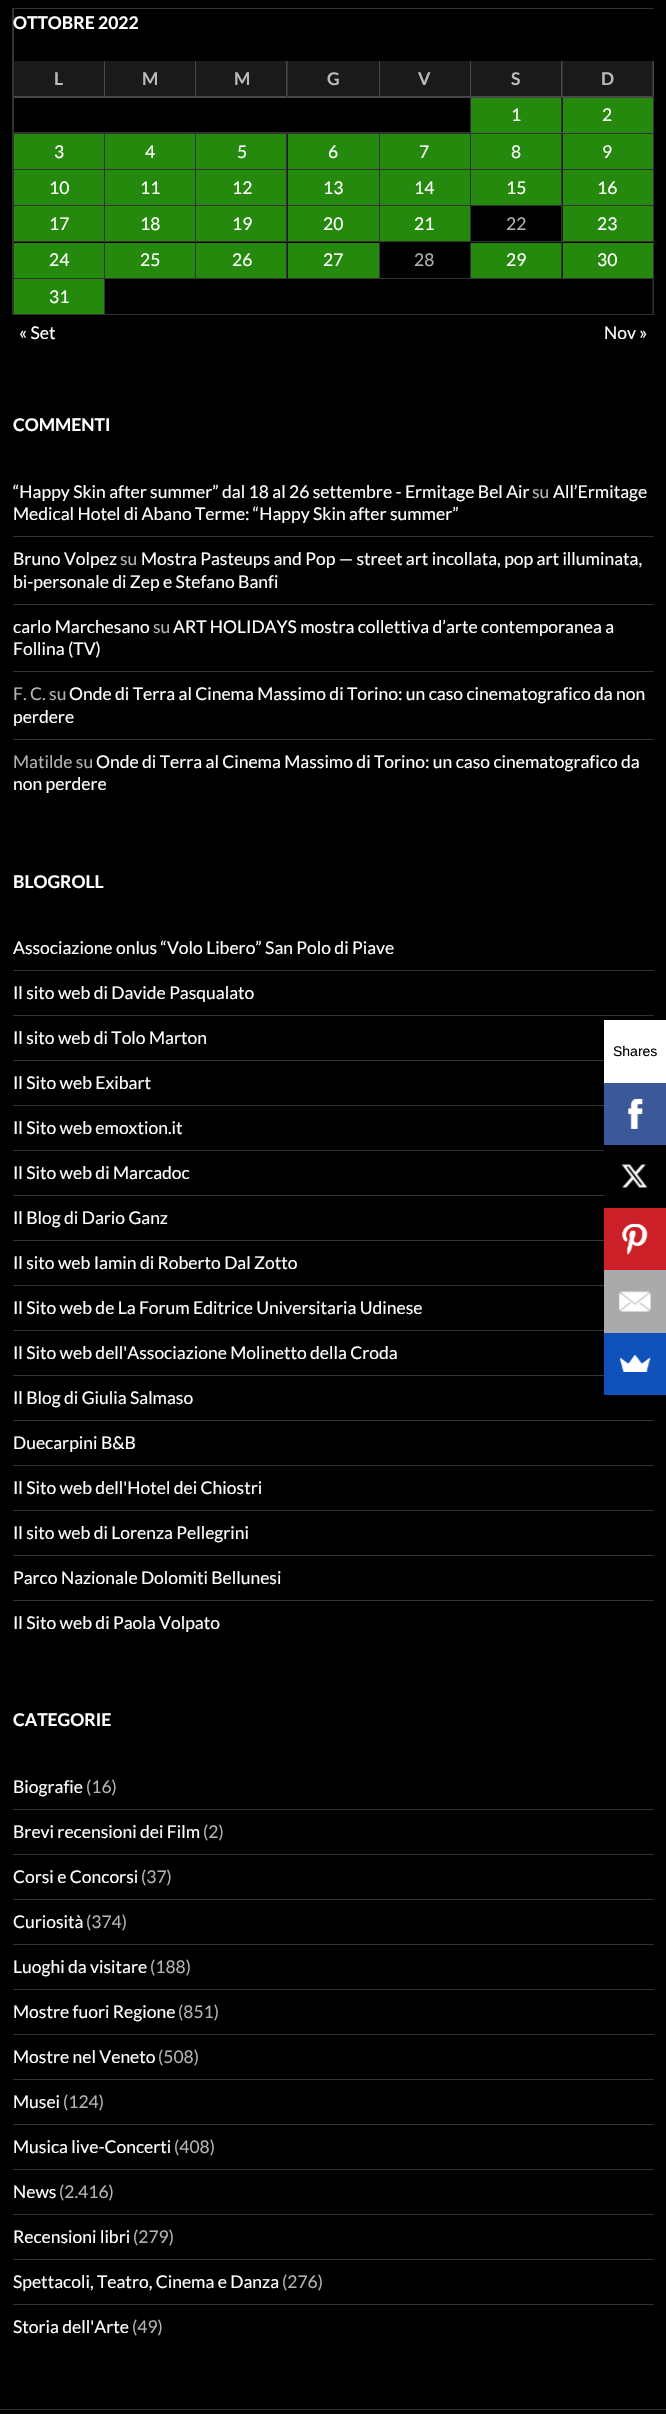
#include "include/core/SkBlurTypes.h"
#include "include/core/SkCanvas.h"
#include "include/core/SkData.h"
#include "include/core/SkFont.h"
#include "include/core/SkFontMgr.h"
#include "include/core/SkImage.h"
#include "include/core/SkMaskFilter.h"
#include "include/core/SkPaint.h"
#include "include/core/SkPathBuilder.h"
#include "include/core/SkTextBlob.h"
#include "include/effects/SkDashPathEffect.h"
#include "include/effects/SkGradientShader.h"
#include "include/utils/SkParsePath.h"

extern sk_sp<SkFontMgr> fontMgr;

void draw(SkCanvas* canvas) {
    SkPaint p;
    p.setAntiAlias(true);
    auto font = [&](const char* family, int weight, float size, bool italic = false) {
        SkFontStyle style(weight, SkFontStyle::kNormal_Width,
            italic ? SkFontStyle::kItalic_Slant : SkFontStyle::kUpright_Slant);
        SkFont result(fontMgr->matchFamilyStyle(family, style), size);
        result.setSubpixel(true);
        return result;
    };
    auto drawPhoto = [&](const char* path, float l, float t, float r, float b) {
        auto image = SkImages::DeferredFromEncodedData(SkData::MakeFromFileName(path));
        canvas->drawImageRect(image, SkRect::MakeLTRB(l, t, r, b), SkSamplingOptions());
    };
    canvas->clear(0xFF000000);
    p.setColor(0xFF333333);
    canvas->drawRect(SkRect::MakeLTRB(0, 2409, 666, 2410), p);
    canvas->drawPath(SkPathBuilder().moveTo(12, 8).lineTo(654, 8).lineTo(654, 9).lineTo(14, 9).close().detach(), p);
    p.setColor(0x33FFFFFF);
    canvas->drawPath(SkPathBuilder().moveTo(12, 315).lineTo(12, 8).lineTo(14, 9).lineTo(14, 315).close().detach(), p);
    auto font1 = font("Lato", 700, 17.5f);
    p.setColor(0xFFFFFFFF);
    canvas->drawString("OTTOBRE 2022", 13, 29, font1, p);
    p.setColor(0xFF1A1A1A);
    canvas->drawRect(SkRect::MakeLTRB(14, 61, 654, 98), p);
    p.setColor(0xFF484848);
    canvas->drawPath(SkPathBuilder().moveTo(105, 61).lineTo(105, 97.5f).lineTo(104, 96).lineTo(104, 61).close().detach(), p);
    p.setColor(0x33FFFFFF);
    canvas->drawPath(SkPathBuilder().moveTo(105, 98).lineTo(14, 98).lineTo(14, 96).lineTo(104, 96).close().detach(), p);
    p.setColor(0xFFBABABA);
    canvas->drawString("L", 54, 85, font1, p);
    p.setColor(0xFF484848);
    canvas->drawPath(SkPathBuilder().moveTo(196, 61).lineTo(196, 97.5f).lineTo(195, 96).lineTo(195, 61).close().detach(), p);
    p.setColor(0x33FFFFFF);
    canvas->drawPath(SkPathBuilder().moveTo(196, 98).lineTo(105, 98).lineTo(105, 96).lineTo(195, 96).close().detach(), p);
    p.setColor(0xFFBABABA);
    canvas->drawString("M", 142, 85, font1, p);
    p.setColor(0xFF484848);
    canvas->drawPath(SkPathBuilder().moveTo(287.5f, 61).lineTo(287.5f, 97.5f).lineTo(286, 96).lineTo(286, 61).close().detach(), p);
    p.setColor(0x33FFFFFF);
    canvas->drawPath(SkPathBuilder().moveTo(288, 98).lineTo(196, 98).lineTo(196, 96).lineTo(286, 96).close().detach(), p);
    p.setColor(0xFFBABABA);
    canvas->drawString("M", 234, 85, font1, p);
    p.setColor(0xFF484848);
    canvas->drawPath(SkPathBuilder().moveTo(380, 61).lineTo(380, 97.5f).lineTo(379, 96).lineTo(379, 61).close().detach(), p);
    p.setColor(0x33FFFFFF);
    canvas->drawPath(SkPathBuilder().moveTo(380, 98).lineTo(288, 98).lineTo(288, 96).lineTo(379, 96).close().detach(), p);
    p.setColor(0xFFBABABA);
    canvas->drawString("G", 327, 85, font1, p);
    p.setColor(0xFF484848);
    canvas->drawPath(SkPathBuilder().moveTo(471, 61).lineTo(471, 97.5f).lineTo(470, 96).lineTo(470, 61).close().detach(), p);
    p.setColor(0x33FFFFFF);
    canvas->drawPath(SkPathBuilder().moveTo(471, 98).lineTo(380, 98).lineTo(380, 96).lineTo(470, 96).close().detach(), p);
    p.setColor(0xFFBABABA);
    canvas->drawString("V", 418, 85, font1, p);
    p.setColor(0xFF484848);
    canvas->drawPath(SkPathBuilder().moveTo(562.5f, 61).lineTo(562.5f, 97.5f).lineTo(561, 96).lineTo(561, 61).close().detach(), p);
    canvas->drawPath(SkPathBuilder().moveTo(562, 98).lineTo(471, 98).lineTo(471, 96).lineTo(561, 96).close().detach(), p);
    p.setColor(0xFFBABABA);
    canvas->drawString("S", 511, 85, font1, p);
    p.setColor(0xFF484848);
    canvas->drawPath(SkPathBuilder().moveTo(654, 61).lineTo(654, 97.5f).lineTo(652.5f, 96).lineTo(652.5f, 61).close().detach(), p);
    p.setColor(0x33FFFFFF);
    canvas->drawPath(SkPathBuilder().moveTo(654, 98).lineTo(562, 98).lineTo(562, 96).lineTo(652, 96).close().detach(), p);
    p.setColor(0xFFBABABA);
    canvas->drawString("D", 601, 85, font1, p);
    p.setColor(0xFF333333);
    canvas->drawPath(SkPathBuilder().moveTo(471, 97.5f).lineTo(471, 134).lineTo(470, 132.5f).lineTo(470, 97.5f).close().detach(), p);
    p.setColor(0x33FFFFFF);
    canvas->drawPath(SkPathBuilder().moveTo(471, 134).lineTo(14, 134).lineTo(14, 132).lineTo(470, 132).close().detach(), p);
    p.setColor(0xFF333333);
    canvas->drawPath(SkPathBuilder().moveTo(562.5f, 97.5f).lineTo(562.5f, 134).lineTo(561, 132.5f).lineTo(561, 97.5f).close().detach(), p);
    p.setColor(0x33FFFFFF);
    canvas->drawPath(SkPathBuilder().moveTo(562, 134).lineTo(471, 134).lineTo(471, 132).lineTo(561, 132).close().detach(), p);
    p.setColor(0xFF24890D);
    canvas->drawRect(SkRect::MakeLTRB(471, 98, 561, 133), p);
    auto font2 = font("Lato", 400, 17.5f);
    p.setColor(0xFFFFFFFF);
    canvas->drawString("1", 511, 121, font2, p);
    p.setColor(0xFF333333);
    canvas->drawPath(SkPathBuilder().moveTo(654, 97.5f).lineTo(654, 134).lineTo(652.5f, 132.5f).lineTo(652.5f, 97.5f).close().detach(), p);
    p.setColor(0x33FFFFFF);
    canvas->drawPath(SkPathBuilder().moveTo(654, 134).lineTo(562, 134).lineTo(562, 132).lineTo(652, 132).close().detach(), p);
    p.setColor(0xFF24890D);
    canvas->drawRect(SkRect::MakeLTRB(563, 98, 653, 133), p);
    p.setColor(0xFFFFFFFF);
    canvas->drawString("2", 602, 121, font2, p);
    p.setColor(0xFF333333);
    canvas->drawPath(SkPathBuilder().moveTo(105, 134).lineTo(105, 170).lineTo(104, 169).lineTo(104, 134).close().detach(), p);
    p.setColor(0x33FFFFFF);
    canvas->drawPath(SkPathBuilder().moveTo(105, 170).lineTo(14, 170).lineTo(14, 169).lineTo(104, 169).close().detach(), p);
    p.setColor(0xFF24890D);
    canvas->drawRect(SkRect::MakeLTRB(14, 134, 104, 169), p);
    p.setColor(0xFFFFFFFF);
    canvas->drawString("3", 54, 158, font2, p);
    p.setColor(0xFF333333);
    canvas->drawPath(SkPathBuilder().moveTo(196, 134).lineTo(196, 170).lineTo(195, 169).lineTo(195, 134).close().detach(), p);
    p.setColor(0x33FFFFFF);
    canvas->drawPath(SkPathBuilder().moveTo(196, 170).lineTo(105, 170).lineTo(105, 169).lineTo(195, 169).close().detach(), p);
    p.setColor(0xFF24890D);
    canvas->drawRect(SkRect::MakeLTRB(105, 134, 195, 169), p);
    p.setColor(0xFFFFFFFF);
    canvas->drawString("4", 145, 158, font2, p);
    p.setColor(0xFF333333);
    canvas->drawPath(SkPathBuilder().moveTo(287.5f, 134).lineTo(287.5f, 170).lineTo(286, 169).lineTo(286, 134).close().detach(), p);
    p.setColor(0x33FFFFFF);
    canvas->drawPath(SkPathBuilder().moveTo(288, 170).lineTo(196, 170).lineTo(196, 169).lineTo(286, 169).close().detach(), p);
    p.setColor(0xFF24890D);
    canvas->drawRect(SkRect::MakeLTRB(196, 134, 286, 169), p);
    p.setColor(0xFFFFFFFF);
    canvas->drawString("5", 237, 158, font2, p);
    p.setColor(0xFF333333);
    canvas->drawPath(SkPathBuilder().moveTo(380, 134).lineTo(380, 170).lineTo(379, 169).lineTo(379, 134).close().detach(), p);
    p.setColor(0x33FFFFFF);
    canvas->drawPath(SkPathBuilder().moveTo(380, 170).lineTo(288, 170).lineTo(288, 169).lineTo(379, 169).close().detach(), p);
    p.setColor(0xFF24890D);
    canvas->drawRect(SkRect::MakeLTRB(288, 134, 379, 169), p);
    p.setColor(0xFFFFFFFF);
    canvas->drawString("6", 328, 158, font2, p);
    p.setColor(0xFF333333);
    canvas->drawPath(SkPathBuilder().moveTo(471, 134).lineTo(471, 170).lineTo(470, 169).lineTo(470, 134).close().detach(), p);
    p.setColor(0x33FFFFFF);
    canvas->drawPath(SkPathBuilder().moveTo(471, 170).lineTo(380, 170).lineTo(380, 169).lineTo(470, 169).close().detach(), p);
    p.setColor(0xFF24890D);
    canvas->drawRect(SkRect::MakeLTRB(380, 134, 470, 169), p);
    p.setColor(0xFFFFFFFF);
    canvas->drawString("7", 419, 158, font2, p);
    p.setColor(0xFF333333);
    canvas->drawPath(SkPathBuilder().moveTo(562.5f, 134).lineTo(562.5f, 170).lineTo(561, 169).lineTo(561, 134).close().detach(), p);
    p.setColor(0x33FFFFFF);
    canvas->drawPath(SkPathBuilder().moveTo(562, 170).lineTo(471, 170).lineTo(471, 169).lineTo(561, 169).close().detach(), p);
    p.setColor(0xFF24890D);
    canvas->drawRect(SkRect::MakeLTRB(471, 134, 561, 169), p);
    p.setColor(0xFFFFFFFF);
    canvas->drawString("8", 511, 158, font2, p);
    p.setColor(0xFF333333);
    canvas->drawPath(SkPathBuilder().moveTo(654, 134).lineTo(654, 170).lineTo(652.5f, 169).lineTo(652.5f, 134).close().detach(), p);
    p.setColor(0x33FFFFFF);
    canvas->drawPath(SkPathBuilder().moveTo(654, 170).lineTo(562, 170).lineTo(562, 169).lineTo(652, 169).close().detach(), p);
    p.setColor(0xFF24890D);
    canvas->drawRect(SkRect::MakeLTRB(563, 134, 653, 169), p);
    p.setColor(0xFFFFFFFF);
    canvas->drawString("9", 602, 158, font2, p);
    p.setColor(0xFF333333);
    canvas->drawPath(SkPathBuilder().moveTo(105, 170).lineTo(105, 206).lineTo(104, 205).lineTo(104, 170).close().detach(), p);
    p.setColor(0x33FFFFFF);
    canvas->drawPath(SkPathBuilder().moveTo(105, 206).lineTo(14, 206).lineTo(14, 205).lineTo(104, 205).close().detach(), p);
    p.setColor(0xFF24890D);
    canvas->drawRect(SkRect::MakeLTRB(14, 170, 104, 205), p);
    p.setColor(0xFFFFFFFF);
    canvas->drawString("10", 49, 194, font2, p);
    p.setColor(0xFF333333);
    canvas->drawPath(SkPathBuilder().moveTo(196, 170).lineTo(196, 206).lineTo(195, 205).lineTo(195, 170).close().detach(), p);
    p.setColor(0x33FFFFFF);
    canvas->drawPath(SkPathBuilder().moveTo(196, 206).lineTo(105, 206).lineTo(105, 205).lineTo(195, 205).close().detach(), p);
    p.setColor(0xFF24890D);
    canvas->drawRect(SkRect::MakeLTRB(105, 170, 195, 205), p);
    p.setColor(0xFFFFFFFF);
    canvas->drawString("11", 140, 194, font2, p);
    p.setColor(0xFF333333);
    canvas->drawPath(SkPathBuilder().moveTo(287.5f, 170).lineTo(287.5f, 206).lineTo(286, 205).lineTo(286, 170).close().detach(), p);
    p.setColor(0x33FFFFFF);
    canvas->drawPath(SkPathBuilder().moveTo(288, 206).lineTo(196, 206).lineTo(196, 205).lineTo(286, 205).close().detach(), p);
    p.setColor(0xFF24890D);
    canvas->drawRect(SkRect::MakeLTRB(196, 170, 286, 205), p);
    p.setColor(0xFFFFFFFF);
    canvas->drawString("12", 232, 194, font2, p);
    p.setColor(0xFF333333);
    canvas->drawPath(SkPathBuilder().moveTo(380, 170).lineTo(380, 206).lineTo(379, 205).lineTo(379, 170).close().detach(), p);
    p.setColor(0x33FFFFFF);
    canvas->drawPath(SkPathBuilder().moveTo(380, 206).lineTo(288, 206).lineTo(288, 205).lineTo(379, 205).close().detach(), p);
    p.setColor(0xFF24890D);
    canvas->drawRect(SkRect::MakeLTRB(288, 170, 379, 205), p);
    p.setColor(0xFFFFFFFF);
    canvas->drawString("13", 323, 194, font2, p);
    p.setColor(0xFF333333);
    canvas->drawPath(SkPathBuilder().moveTo(471, 170).lineTo(471, 206).lineTo(470, 205).lineTo(470, 170).close().detach(), p);
    p.setColor(0x33FFFFFF);
    canvas->drawPath(SkPathBuilder().moveTo(471, 206).lineTo(380, 206).lineTo(380, 205).lineTo(470, 205).close().detach(), p);
    p.setColor(0xFF24890D);
    canvas->drawRect(SkRect::MakeLTRB(380, 170, 470, 205), p);
    p.setColor(0xFFFFFFFF);
    canvas->drawString("14", 414, 194, font2, p);
    p.setColor(0xFF333333);
    canvas->drawPath(SkPathBuilder().moveTo(562.5f, 170).lineTo(562.5f, 206).lineTo(561, 205).lineTo(561, 170).close().detach(), p);
    p.setColor(0x33FFFFFF);
    canvas->drawPath(SkPathBuilder().moveTo(562, 206).lineTo(471, 206).lineTo(471, 205).lineTo(561, 205).close().detach(), p);
    p.setColor(0xFF24890D);
    canvas->drawRect(SkRect::MakeLTRB(471, 170, 561, 205), p);
    p.setColor(0xFFFFFFFF);
    canvas->drawString("15", 506, 194, font2, p);
    p.setColor(0xFF333333);
    canvas->drawPath(SkPathBuilder().moveTo(654, 170).lineTo(654, 206).lineTo(652.5f, 205).lineTo(652.5f, 170).close().detach(), p);
    p.setColor(0x33FFFFFF);
    canvas->drawPath(SkPathBuilder().moveTo(654, 206).lineTo(562, 206).lineTo(562, 205).lineTo(652, 205).close().detach(), p);
    p.setColor(0xFF24890D);
    canvas->drawRect(SkRect::MakeLTRB(563, 170, 653, 205), p);
    p.setColor(0xFFFFFFFF);
    canvas->drawString("16", 597, 194, font2, p);
    p.setColor(0xFF333333);
    canvas->drawPath(SkPathBuilder().moveTo(105, 206).lineTo(105, 242.5f).lineTo(104, 241).lineTo(104, 206).close().detach(), p);
    p.setColor(0x33FFFFFF);
    canvas->drawPath(SkPathBuilder().moveTo(105, 242).lineTo(14, 242).lineTo(14, 241).lineTo(104, 241).close().detach(), p);
    p.setColor(0xFF24890D);
    canvas->drawRect(SkRect::MakeLTRB(14, 206, 104, 241), p);
    p.setColor(0xFFFFFFFF);
    canvas->drawString("17", 49, 230, font2, p);
    p.setColor(0xFF333333);
    canvas->drawPath(SkPathBuilder().moveTo(196, 206).lineTo(196, 242.5f).lineTo(195, 241).lineTo(195, 206).close().detach(), p);
    p.setColor(0x33FFFFFF);
    canvas->drawPath(SkPathBuilder().moveTo(196, 242).lineTo(105, 242).lineTo(105, 241).lineTo(195, 241).close().detach(), p);
    p.setColor(0xFF24890D);
    canvas->drawRect(SkRect::MakeLTRB(105, 206, 195, 241), p);
    p.setColor(0xFFFFFFFF);
    canvas->drawString("18", 140, 230, font2, p);
    p.setColor(0xFF333333);
    canvas->drawPath(SkPathBuilder().moveTo(287.5f, 206).lineTo(287.5f, 242.5f).lineTo(286, 241).lineTo(286, 206).close().detach(), p);
    p.setColor(0x33FFFFFF);
    canvas->drawPath(SkPathBuilder().moveTo(288, 242).lineTo(196, 242).lineTo(196, 241).lineTo(286, 241).close().detach(), p);
    p.setColor(0xFF24890D);
    canvas->drawRect(SkRect::MakeLTRB(196, 206, 286, 241), p);
    p.setColor(0xFFFFFFFF);
    canvas->drawString("19", 232, 230, font2, p);
    p.setColor(0xFF333333);
    canvas->drawPath(SkPathBuilder().moveTo(380, 206).lineTo(380, 242.5f).lineTo(379, 241).lineTo(379, 206).close().detach(), p);
    p.setColor(0x33FFFFFF);
    canvas->drawPath(SkPathBuilder().moveTo(380, 242).lineTo(288, 242).lineTo(288, 241).lineTo(379, 241).close().detach(), p);
    p.setColor(0xFF24890D);
    canvas->drawRect(SkRect::MakeLTRB(288, 206, 379, 241), p);
    p.setColor(0xFFFFFFFF);
    canvas->drawString("20", 323, 230, font2, p);
    p.setColor(0xFF333333);
    canvas->drawPath(SkPathBuilder().moveTo(471, 206).lineTo(471, 242.5f).lineTo(470, 241).lineTo(470, 206).close().detach(), p);
    p.setColor(0x33FFFFFF);
    canvas->drawPath(SkPathBuilder().moveTo(471, 242).lineTo(380, 242).lineTo(380, 241).lineTo(470, 241).close().detach(), p);
    p.setColor(0xFF24890D);
    canvas->drawRect(SkRect::MakeLTRB(380, 206, 470, 241), p);
    p.setColor(0xFFFFFFFF);
    canvas->drawString("21", 414, 230, font2, p);
    p.setColor(0xFF333333);
    canvas->drawPath(SkPathBuilder().moveTo(562.5f, 206).lineTo(562.5f, 242.5f).lineTo(561, 241).lineTo(561, 206).close().detach(), p);
    p.setColor(0x33FFFFFF);
    canvas->drawPath(SkPathBuilder().moveTo(562, 242).lineTo(471, 242).lineTo(471, 241).lineTo(561, 241).close().detach(), p);
    p.setColor(0xFFB3B3B3);
    canvas->drawString("22", 506, 230, font2, p);
    p.setColor(0xFF333333);
    canvas->drawPath(SkPathBuilder().moveTo(654, 206).lineTo(654, 242.5f).lineTo(652.5f, 241).lineTo(652.5f, 206).close().detach(), p);
    p.setColor(0x33FFFFFF);
    canvas->drawPath(SkPathBuilder().moveTo(654, 242).lineTo(562, 242).lineTo(562, 241).lineTo(652, 241).close().detach(), p);
    p.setColor(0xFF24890D);
    canvas->drawRect(SkRect::MakeLTRB(563, 206, 653, 241), p);
    p.setColor(0xFFFFFFFF);
    canvas->drawString("23", 597, 230, font2, p);
    p.setColor(0xFF333333);
    canvas->drawPath(SkPathBuilder().moveTo(105, 242.5f).lineTo(105, 279).lineTo(104, 277.5f).lineTo(104, 242.5f).close().detach(), p);
    p.setColor(0x33FFFFFF);
    canvas->drawPath(SkPathBuilder().moveTo(105, 279).lineTo(14, 279).lineTo(14, 278).lineTo(104, 278).close().detach(), p);
    p.setColor(0xFF24890D);
    canvas->drawRect(SkRect::MakeLTRB(14, 243, 104, 278), p);
    p.setColor(0xFFFFFFFF);
    canvas->drawString("24", 49, 266, font2, p);
    p.setColor(0xFF333333);
    canvas->drawPath(SkPathBuilder().moveTo(196, 242.5f).lineTo(196, 279).lineTo(195, 277.5f).lineTo(195, 242.5f).close().detach(), p);
    p.setColor(0x33FFFFFF);
    canvas->drawPath(SkPathBuilder().moveTo(196, 279).lineTo(105, 279).lineTo(105, 278).lineTo(195, 278).close().detach(), p);
    p.setColor(0xFF24890D);
    canvas->drawRect(SkRect::MakeLTRB(105, 243, 195, 278), p);
    p.setColor(0xFFFFFFFF);
    canvas->drawString("25", 140, 266, font2, p);
    p.setColor(0xFF333333);
    canvas->drawPath(SkPathBuilder().moveTo(287.5f, 242.5f).lineTo(287.5f, 279).lineTo(286, 277.5f).lineTo(286, 242.5f).close().detach(), p);
    p.setColor(0x33FFFFFF);
    canvas->drawPath(SkPathBuilder().moveTo(288, 279).lineTo(196, 279).lineTo(196, 278).lineTo(286, 278).close().detach(), p);
    p.setColor(0xFF24890D);
    canvas->drawRect(SkRect::MakeLTRB(196, 243, 286, 278), p);
    p.setColor(0xFFFFFFFF);
    canvas->drawString("26", 232, 266, font2, p);
    p.setColor(0xFF333333);
    canvas->drawPath(SkPathBuilder().moveTo(380, 242.5f).lineTo(380, 279).lineTo(379, 277.5f).lineTo(379, 242.5f).close().detach(), p);
    p.setColor(0x33FFFFFF);
    canvas->drawPath(SkPathBuilder().moveTo(380, 279).lineTo(288, 279).lineTo(288, 278).lineTo(379, 278).close().detach(), p);
    p.setColor(0xFF24890D);
    canvas->drawRect(SkRect::MakeLTRB(288, 243, 379, 278), p);
    p.setColor(0xFFFFFFFF);
    canvas->drawString("27", 323, 266, font2, p);
    p.setColor(0xFF333333);
    canvas->drawPath(SkPathBuilder().moveTo(471, 242.5f).lineTo(471, 279).lineTo(470, 277.5f).lineTo(470, 242.5f).close().detach(), p);
    p.setColor(0x33FFFFFF);
    canvas->drawPath(SkPathBuilder().moveTo(471, 279).lineTo(380, 279).lineTo(380, 278).lineTo(470, 278).close().detach(), p);
    p.setColor(0xFFB3B3B3);
    canvas->drawString("28", 414, 266, font2, p);
    p.setColor(0xFF333333);
    canvas->drawPath(SkPathBuilder().moveTo(562.5f, 242.5f).lineTo(562.5f, 279).lineTo(561, 277.5f).lineTo(561, 242.5f).close().detach(), p);
    p.setColor(0x33FFFFFF);
    canvas->drawPath(SkPathBuilder().moveTo(562, 279).lineTo(471, 279).lineTo(471, 278).lineTo(561, 278).close().detach(), p);
    p.setColor(0xFF24890D);
    canvas->drawRect(SkRect::MakeLTRB(471, 243, 561, 278), p);
    p.setColor(0xFFFFFFFF);
    canvas->drawString("29", 506, 266, font2, p);
    p.setColor(0xFF333333);
    canvas->drawPath(SkPathBuilder().moveTo(654, 242.5f).lineTo(654, 279).lineTo(652.5f, 277.5f).lineTo(652.5f, 242.5f).close().detach(), p);
    p.setColor(0x33FFFFFF);
    canvas->drawPath(SkPathBuilder().moveTo(654, 279).lineTo(562, 279).lineTo(562, 278).lineTo(652, 278).close().detach(), p);
    p.setColor(0xFF24890D);
    canvas->drawRect(SkRect::MakeLTRB(563, 243, 653, 278), p);
    p.setColor(0xFFFFFFFF);
    canvas->drawString("30", 597, 266, font2, p);
    p.setColor(0xFF333333);
    canvas->drawPath(SkPathBuilder().moveTo(105, 279).lineTo(105, 315).lineTo(104, 314).lineTo(104, 279).close().detach(), p);
    p.setColor(0x33FFFFFF);
    canvas->drawPath(SkPathBuilder().moveTo(105, 315).lineTo(14, 315).lineTo(14, 314).lineTo(104, 314).close().detach(), p);
    p.setColor(0xFF24890D);
    canvas->drawRect(SkRect::MakeLTRB(14, 279, 104, 314), p);
    p.setColor(0xFFFFFFFF);
    canvas->drawString("31", 49, 303, font2, p);
    p.setColor(0xFF333333);
    canvas->drawPath(SkPathBuilder().moveTo(654, 279).lineTo(654, 315).lineTo(652.5f, 314).lineTo(652.5f, 279).close().detach(), p);
    p.setColor(0x33FFFFFF);
    canvas->drawPath(SkPathBuilder().moveTo(654, 315).lineTo(105, 315).lineTo(105, 314).lineTo(652, 314).close().detach(), p);
    p.setColor(0xFFFFFFFF);
    canvas->drawString("« Set", 19, 339, font2, p);
    canvas->drawString("Nov »", 604, 339, font2, p);
    canvas->drawString("COMMENTI", 13, 431, font1, p);
    canvas->drawString("“Happy Skin after summer” dal 18 al 26 settembre - Ermitage Bel Air", 13, 498, font2, p);
    p.setColor(0xFFB3B3B3);
    canvas->drawString("su", 532, 498, font2, p);
    p.setColor(0xFFFFFFFF);
    canvas->drawString("All’Ermitage", 553, 498, font2, p);
    canvas->drawString("Medical Hotel di Abano Terme: “Happy Skin after summer”", 13, 520, font2, p);
    p.setColor(0xFF333333);
    canvas->drawRect(SkRect::MakeLTRB(13, 536, 654, 537), p);
    p.setColor(0xFFFFFFFF);
    canvas->drawString("Bruno Volpez", 13, 565, font2, p);
    p.setColor(0xFFB3B3B3);
    canvas->drawString("su", 120, 565, font2, p);
    p.setColor(0xFFFFFFFF);
    canvas->drawString("Mostra Pasteups and Pop — street art incollata, pop art illuminata,", 141, 565, font2, p);
    canvas->drawString("bi-personale di Zep e Stefano Banfi", 13, 588, font2, p);
    p.setColor(0xFF333333);
    canvas->drawRect(SkRect::MakeLTRB(13, 604, 654, 605), p);
    p.setColor(0xFFFFFFFF);
    canvas->drawString("carlo Marchesano", 13, 633, font2, p);
    p.setColor(0xFFB3B3B3);
    canvas->drawString("su", 153, 633, font2, p);
    p.setColor(0xFFFFFFFF);
    canvas->drawString("ART HOLIDAYS mostra collettiva d’arte contemporanea a", 173, 633, font2, p);
    canvas->drawString("Follina (TV)", 13, 655, font2, p);
    p.setColor(0xFF333333);
    canvas->drawRect(SkRect::MakeLTRB(13, 671, 654, 672), p);
    p.setColor(0xFFB3B3B3);
    canvas->drawString("F. C. su", 13, 700, font2, p);
    p.setColor(0xFFFFFFFF);
    canvas->drawString("Onde di Terra al Cinema Massimo di Torino: un caso cinematografico da non", 69, 700, font2, p);
    canvas->drawString("perdere", 13, 723, font2, p);
    p.setColor(0xFF333333);
    canvas->drawRect(SkRect::MakeLTRB(13, 739, 654, 740), p);
    p.setColor(0xFFB3B3B3);
    canvas->drawString("Matilde su", 13, 768, font2, p);
    p.setColor(0xFFFFFFFF);
    canvas->drawString("Onde di Terra al Cinema Massimo di Torino: un caso cinematografico da", 96, 768, font2, p);
    canvas->drawString("non perdere", 13, 790, font2, p);
    canvas->drawString("BLOGROLL", 13, 888, font1, p);
    canvas->drawString("Associazione onlus “Volo Libero” San Polo di Piave", 13, 954, font2, p);
    p.setColor(0xFF333333);
    canvas->drawRect(SkRect::MakeLTRB(13, 970, 654, 971), p);
    p.setColor(0xFFFFFFFF);
    canvas->drawString("Il sito web di Davide Pasqualato", 13, 999, font2, p);
    p.setColor(0xFF333333);
    canvas->drawRect(SkRect::MakeLTRB(13, 1015, 654, 1016), p);
    p.setColor(0xFFFFFFFF);
    canvas->drawString("Il sito web di Tolo Marton", 13, 1044, font2, p);
    p.setColor(0xFF333333);
    canvas->drawRect(SkRect::MakeLTRB(13, 1060, 604, 1061), p);
    p.setColor(0xFFFFFFFF);
    canvas->drawString("Il Sito web Exibart", 13, 1089, font2, p);
    p.setColor(0xFF333333);
    canvas->drawRect(SkRect::MakeLTRB(13, 1105, 604, 1106), p);
    p.setColor(0xFFFFFFFF);
    canvas->drawString("Il Sito web emoxtion.it", 13, 1134, font2, p);
    p.setColor(0xFF333333);
    canvas->drawRect(SkRect::MakeLTRB(13, 1150, 604, 1151), p);
    p.setColor(0xFFFFFFFF);
    canvas->drawString("Il Sito web di Marcadoc", 13, 1179, font2, p);
    p.setColor(0xFF333333);
    canvas->drawRect(SkRect::MakeLTRB(13, 1195, 604, 1196), p);
    p.setColor(0xFFFFFFFF);
    canvas->drawString("Il Blog di Dario Ganz", 13, 1224, font2, p);
    p.setColor(0xFF333333);
    canvas->drawRect(SkRect::MakeLTRB(13, 1240, 604, 1241), p);
    p.setColor(0xFFFFFFFF);
    canvas->drawString("Il sito web Iamin di Roberto Dal Zotto", 13, 1269, font2, p);
    p.setColor(0xFF333333);
    canvas->drawRect(SkRect::MakeLTRB(13, 1285, 604, 1286), p);
    p.setColor(0xFFFFFFFF);
    canvas->drawString("Il Sito web de La Forum Editrice Universitaria Udinese", 13, 1314, font2, p);
    p.setColor(0xFF333333);
    canvas->drawRect(SkRect::MakeLTRB(13, 1330, 604, 1331), p);
    p.setColor(0xFFFFFFFF);
    canvas->drawString("Il Sito web dell'Associazione Molinetto della Croda", 13, 1359, font2, p);
    p.setColor(0xFF333333);
    canvas->drawRect(SkRect::MakeLTRB(13, 1375, 604, 1376), p);
    p.setColor(0xFFFFFFFF);
    canvas->drawString("Il Blog di Giulia Salmaso", 13, 1404, font2, p);
    p.setColor(0xFF333333);
    canvas->drawRect(SkRect::MakeLTRB(13, 1420, 654, 1421), p);
    p.setColor(0xFFFFFFFF);
    canvas->drawString("Duecarpini B&B", 13, 1449, font2, p);
    p.setColor(0xFF333333);
    canvas->drawRect(SkRect::MakeLTRB(13, 1465, 654, 1466), p);
    p.setColor(0xFFFFFFFF);
    canvas->drawString("Il Sito web dell'Hotel dei Chiostri", 13, 1494, font2, p);
    p.setColor(0xFF333333);
    canvas->drawRect(SkRect::MakeLTRB(13, 1510, 654, 1511), p);
    p.setColor(0xFFFFFFFF);
    canvas->drawString("Il sito web di Lorenza Pellegrini", 13, 1539, font2, p);
    p.setColor(0xFF333333);
    canvas->drawRect(SkRect::MakeLTRB(13, 1555, 654, 1556), p);
    p.setColor(0xFFFFFFFF);
    canvas->drawString("Parco Nazionale Dolomiti Bellunesi", 13, 1584, font2, p);
    p.setColor(0xFF333333);
    canvas->drawRect(SkRect::MakeLTRB(13, 1600, 654, 1601), p);
    p.setColor(0xFFFFFFFF);
    canvas->drawString("Il Sito web di Paola Volpato", 13, 1629, font2, p);
    canvas->drawString("CATEGORIE", 13, 1726, font1, p);
    canvas->drawString("Biografie", 13, 1793, font2, p);
    p.setColor(0xFFB3B3B3);
    canvas->drawString("(16)", 86, 1793, font2, p);
    p.setColor(0xFF333333);
    canvas->drawRect(SkRect::MakeLTRB(13, 1809, 654, 1810), p);
    p.setColor(0xFFFFFFFF);
    canvas->drawString("Brevi recensioni dei Film", 13, 1838, font2, p);
    p.setColor(0xFFB3B3B3);
    canvas->drawString("(2)", 203, 1838, font2, p);
    p.setColor(0xFF333333);
    canvas->drawRect(SkRect::MakeLTRB(13, 1854, 654, 1855), p);
    p.setColor(0xFFFFFFFF);
    canvas->drawString("Corsi e Concorsi", 13, 1883, font2, p);
    p.setColor(0xFFB3B3B3);
    canvas->drawString("(37)", 141, 1883, font2, p);
    p.setColor(0xFF333333);
    canvas->drawRect(SkRect::MakeLTRB(13, 1899, 654, 1900), p);
    p.setColor(0xFFFFFFFF);
    canvas->drawString("Curiosità", 13, 1928, font2, p);
    p.setColor(0xFFB3B3B3);
    canvas->drawString("(374)", 86, 1928, font2, p);
    p.setColor(0xFF333333);
    canvas->drawRect(SkRect::MakeLTRB(13, 1944, 654, 1945), p);
    p.setColor(0xFFFFFFFF);
    canvas->drawString("Luoghi da visitare", 13, 1973, font2, p);
    p.setColor(0xFFB3B3B3);
    canvas->drawString("(188)", 150, 1973, font2, p);
    p.setColor(0xFF333333);
    canvas->drawRect(SkRect::MakeLTRB(13, 1989, 654, 1990), p);
    p.setColor(0xFFFFFFFF);
    canvas->drawString("Mostre fuori Regione", 13, 2018, font2, p);
    p.setColor(0xFFB3B3B3);
    canvas->drawString("(851)", 178, 2018, font2, p);
    p.setColor(0xFF333333);
    canvas->drawRect(SkRect::MakeLTRB(13, 2034, 654, 2035), p);
    p.setColor(0xFFFFFFFF);
    canvas->drawString("Mostre nel Veneto", 13, 2063, font2, p);
    p.setColor(0xFFB3B3B3);
    canvas->drawString("(508)", 158, 2063, font2, p);
    p.setColor(0xFF333333);
    canvas->drawRect(SkRect::MakeLTRB(13, 2079, 654, 2080), p);
    p.setColor(0xFFFFFFFF);
    canvas->drawString("Musei", 13, 2108, font2, p);
    p.setColor(0xFFB3B3B3);
    canvas->drawString("(124)", 63, 2108, font2, p);
    p.setColor(0xFF333333);
    canvas->drawRect(SkRect::MakeLTRB(13, 2124, 654, 2125), p);
    p.setColor(0xFFFFFFFF);
    canvas->drawString("Musica live-Concerti", 13, 2153, font2, p);
    p.setColor(0xFFB3B3B3);
    canvas->drawString("(408)", 174, 2153, font2, p);
    p.setColor(0xFF333333);
    canvas->drawRect(SkRect::MakeLTRB(13, 2169, 654, 2170), p);
    p.setColor(0xFFFFFFFF);
    canvas->drawString("News", 13, 2198, font2, p);
    p.setColor(0xFFB3B3B3);
    canvas->drawString("(2.416)", 59, 2198, font2, p);
    p.setColor(0xFF333333);
    canvas->drawRect(SkRect::MakeLTRB(13, 2214, 654, 2215), p);
    p.setColor(0xFFFFFFFF);
    canvas->drawString("Recensioni libri", 13, 2243, font2, p);
    p.setColor(0xFFB3B3B3);
    canvas->drawString("(279)", 133, 2243, font2, p);
    p.setColor(0xFF333333);
    canvas->drawRect(SkRect::MakeLTRB(13, 2259, 654, 2260), p);
    p.setColor(0xFFFFFFFF);
    canvas->drawString("Spettacoli, Teatro, Cinema e Danza", 13, 2288, font2, p);
    p.setColor(0xFFB3B3B3);
    canvas->drawString("(276)", 282, 2288, font2, p);
    p.setColor(0xFF333333);
    canvas->drawRect(SkRect::MakeLTRB(13, 2304, 654, 2305), p);
    p.setColor(0xFFFFFFFF);
    canvas->drawString("Storia dell'Arte", 13, 2333, font2, p);
    p.setColor(0xFFB3B3B3);
    canvas->drawString("(49)", 132, 2333, font2, p);
    p.setColor(0xFFFFFFFF);
    canvas->drawRect(SkRect::MakeLTRB(604, 1020, 666, 1083), p);
    auto font3 = font("Liberation Sans", 400, 14);
    p.setColor(0xFF000000);
    canvas->drawString("Shares", 613, 1056, font3, p);
    p.setColor(0xFF3B5998);
    canvas->drawRect(SkRect::MakeLTRB(604, 1083, 666, 1145), p);
    drawPhoto("media/1.png", 628, 1098, 644, 1129);
    drawPhoto("media/2.png", 621, 1164, 648, 1188);
    p.setColor(0xFFCB2027);
    canvas->drawRect(SkRect::MakeLTRB(604, 1208, 666, 1270), p);
    drawPhoto("media/3.png", 622, 1223, 648, 1255);
    p.setColor(0xFFAAAAAA);
    canvas->drawRect(SkRect::MakeLTRB(604, 1270, 666, 1333), p);
    drawPhoto("media/4.png", 619, 1291, 652, 1312);
    p.setColor(0xFF0F52BA);
    canvas->drawRect(SkRect::MakeLTRB(604, 1333, 666, 1395), p);
    drawPhoto("media/5.png", 619, 1355, 651, 1372);
}
